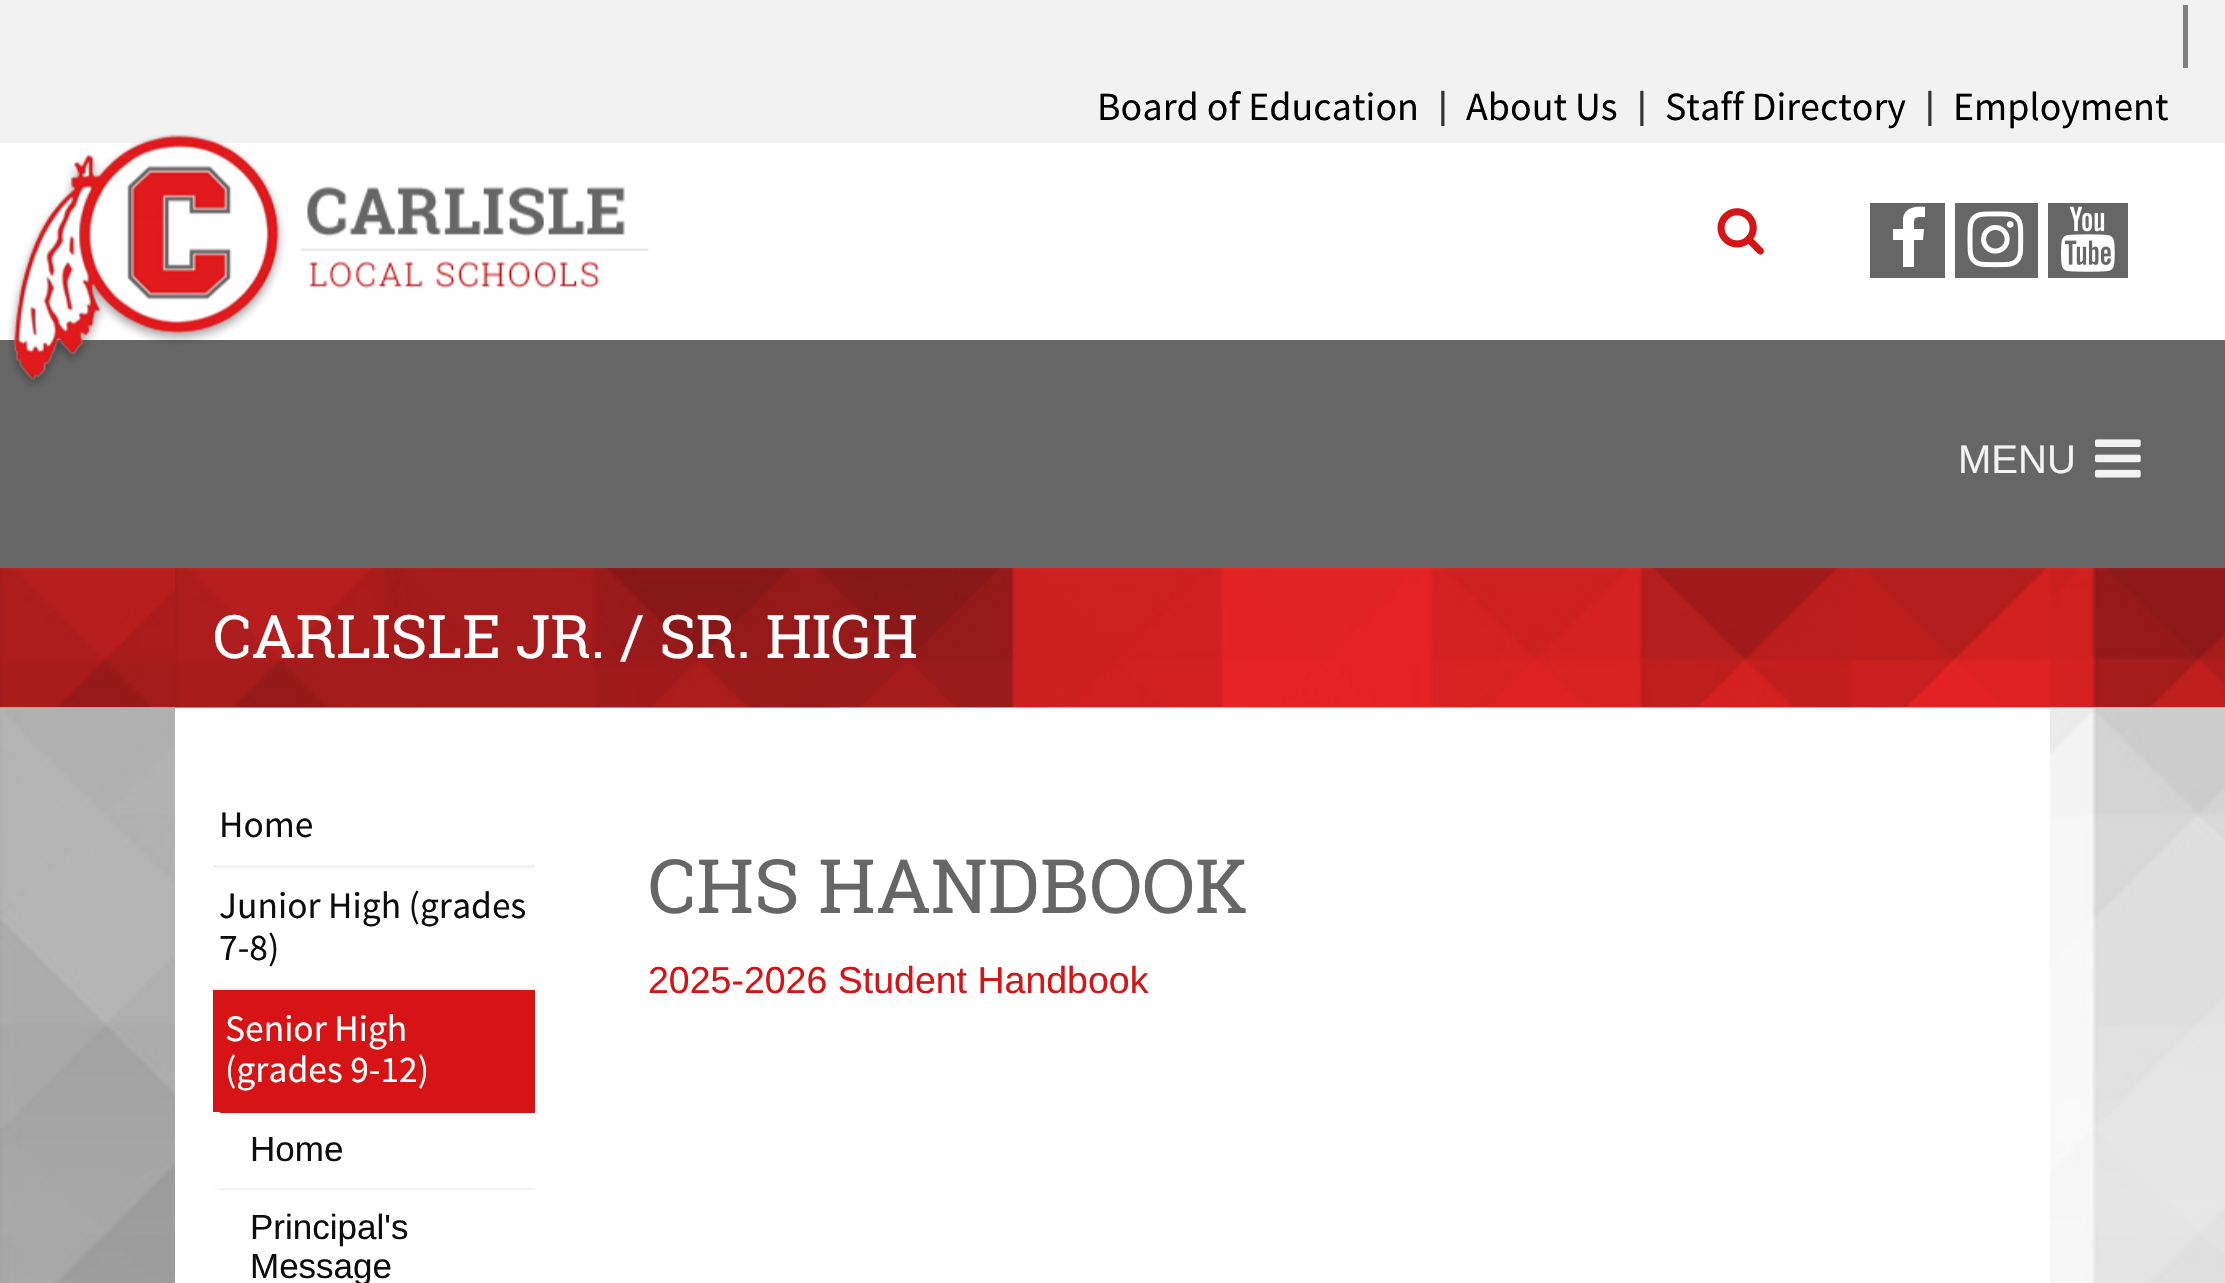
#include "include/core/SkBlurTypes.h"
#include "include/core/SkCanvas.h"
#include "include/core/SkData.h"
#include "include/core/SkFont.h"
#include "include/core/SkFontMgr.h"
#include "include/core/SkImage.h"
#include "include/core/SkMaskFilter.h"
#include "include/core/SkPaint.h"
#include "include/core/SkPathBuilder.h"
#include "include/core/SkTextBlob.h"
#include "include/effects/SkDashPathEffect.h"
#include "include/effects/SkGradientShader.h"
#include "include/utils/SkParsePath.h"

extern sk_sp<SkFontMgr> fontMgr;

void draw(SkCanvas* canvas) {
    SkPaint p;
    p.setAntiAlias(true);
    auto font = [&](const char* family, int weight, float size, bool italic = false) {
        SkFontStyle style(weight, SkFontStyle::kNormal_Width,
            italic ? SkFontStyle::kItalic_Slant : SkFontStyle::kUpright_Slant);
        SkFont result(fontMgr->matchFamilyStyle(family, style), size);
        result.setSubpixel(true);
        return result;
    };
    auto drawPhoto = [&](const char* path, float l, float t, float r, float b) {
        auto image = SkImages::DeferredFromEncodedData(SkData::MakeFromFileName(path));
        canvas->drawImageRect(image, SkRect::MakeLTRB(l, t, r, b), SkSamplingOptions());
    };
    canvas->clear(0xFFF2F2F2);
    p.setColor(0xFF808080);
    canvas->drawRect(SkRect::MakeLTRB(2183, 5, 2188, 68), p);
    auto font1 = font("Source Sans Pro", 400, 40);
    p.setColor(0xFF000000);
    canvas->drawString("Board of Education", 1097, 120, font1, p);
    auto font2 = font("Liberation Sans", 400, 37.5f);
    p.setColor(0xFF333333);
    canvas->drawString("|", 1438, 118, font2, p);
    p.setColor(0xFF000000);
    canvas->drawString("About Us", 1466, 120, font1, p);
    p.setColor(0xFF333333);
    canvas->drawString("|", 1637, 118, font2, p);
    p.setColor(0xFF000000);
    canvas->drawString("Staff Directory", 1665, 120, font1, p);
    p.setColor(0xFF333333);
    canvas->drawString("|", 1925, 118, font2, p);
    p.setColor(0xFF000000);
    canvas->drawString("Employment", 1953, 120, font1, p);
    p.setColor(0xFFFFFFFF);
    canvas->drawRect(SkRect::MakeLTRB(0, 143, 2225, 340), p);
    p.setColor(0xFF666666);
    canvas->drawRect(SkRect::MakeLTRB(0, 340, 2225, 568), p);
    drawPhoto("media/1.png", 8, 134, 649, 387);
    drawPhoto("media/2.png", 1717, 208, 1764, 255);
    canvas->drawRect(SkRect::MakeLTRB(1870, 203, 1945, 278), p);
    p.setColor(0xFFFFFFFF);
    canvas->drawPath(SkPathBuilder().moveTo(1925, 207).lineTo(1925, 217).cubicTo(1913, 217, 1914, 217, 1914, 229).lineTo(1924, 229).lineTo(1923, 240).lineTo(1914, 240).lineTo(1914, 267).lineTo(1903, 267).lineTo(1903, 240).lineTo(1893, 240).lineTo(1893, 229).lineTo(1903, 229).lineTo(1903, 218).cubicTo(1905, 207, 1916, 206, 1925, 207).close().detach(), p);
    p.setColor(0xFF666666);
    canvas->drawRect(SkRect::MakeLTRB(1955, 203, 2038, 278), p);
    drawPhoto("media/3.png", 1967, 211, 2024, 268);
    canvas->drawRect(SkRect::MakeLTRB(2048, 203, 2128, 278), p);
    drawPhoto("media/4.png", 2061, 206, 2115, 272);
    auto font3 = font("Liberation Sans", 400, 40);
    p.setColor(0xFFF2F2F2);
    canvas->drawString("MENU", 1958, 473, font3, p);
    drawPhoto("media/5.png", 2095, 439, 2141, 478);
    drawPhoto("media/6.png", 0, 568, 2225, 708);
    drawPhoto("media/7.png", 175, 568, 2050, 708);
    auto font4 = font("Roboto Slab", 400, 60);
    p.setColor(0xFFFFFFFF);
    canvas->drawString("CARLISLE JR. / SR. HIGH", 213, 658, font4, p);
    drawPhoto("media/8.png", 0, 707, 2225, 1283);
    canvas->drawRect(SkRect::MakeLTRB(175, 708, 2050, 1283), p);
    p.setColor(0xFFF2F2F2);
    canvas->drawRect(SkRect::MakeLTRB(213, 865, 535, 868), p);
    auto font5 = font("Source Sans Pro", 400, 37.5f);
    p.setColor(0xFF0D0D0D);
    canvas->drawString("Home", 219, 837, font5, p);
    p.setColor(0xFFF2F2F2);
    canvas->drawRect(SkRect::MakeLTRB(213, 988, 535, 990), p);
    p.setColor(0xFF0D0D0D);
    canvas->drawString("Junior High (grades", 219, 918, font5, p);
    canvas->drawString("7-8)", 219, 960, font5, p);
    p.setColor(0xFFD61315);
    canvas->drawRect(SkRect::MakeLTRB(213, 990, 535, 1113), p);
    p.setColor(0xFFFFFFFF);
    canvas->drawString("Senior High", 225, 1041, font5, p);
    canvas->drawString("(grades 9-12)", 225, 1082, font5, p);
    p.setColor(0xFFF2F2F2);
    canvas->drawPath(SkPathBuilder().moveTo(535, 1190).lineTo(212, 1190).lineTo(220, 1188).lineTo(535, 1188).close().detach(), p);
    p.setColor(0xFFFFFFFF);
    canvas->drawPath(SkPathBuilder().moveTo(212, 1190).lineTo(212, 1112).lineTo(220, 1112).lineTo(220, 1188).close().detach(), p);
    auto font6 = font("Liberation Sans", 400, 35);
    p.setColor(0xFF0D0D0D);
    {
        const struct { const char* s; float x, y; } items[] = {
            {"Home", 250, 1161},
            {"Principal's", 250, 1239},
            {"Message", 250, 1278},
        };
        for (auto [s, x, y] : items) {
            canvas->drawString(s, x, y, font6, p);
        }
    }
    auto font7 = font("Roboto Slab", 400, 75);
    p.setColor(0xFF666666);
    canvas->drawString("CHS HANDBOOK", 648, 913, font7, p);
    p.setColor(0xFFD61315);
    canvas->drawString("2025-2026 Student Handbook", 648, 993, font2, p);
}
